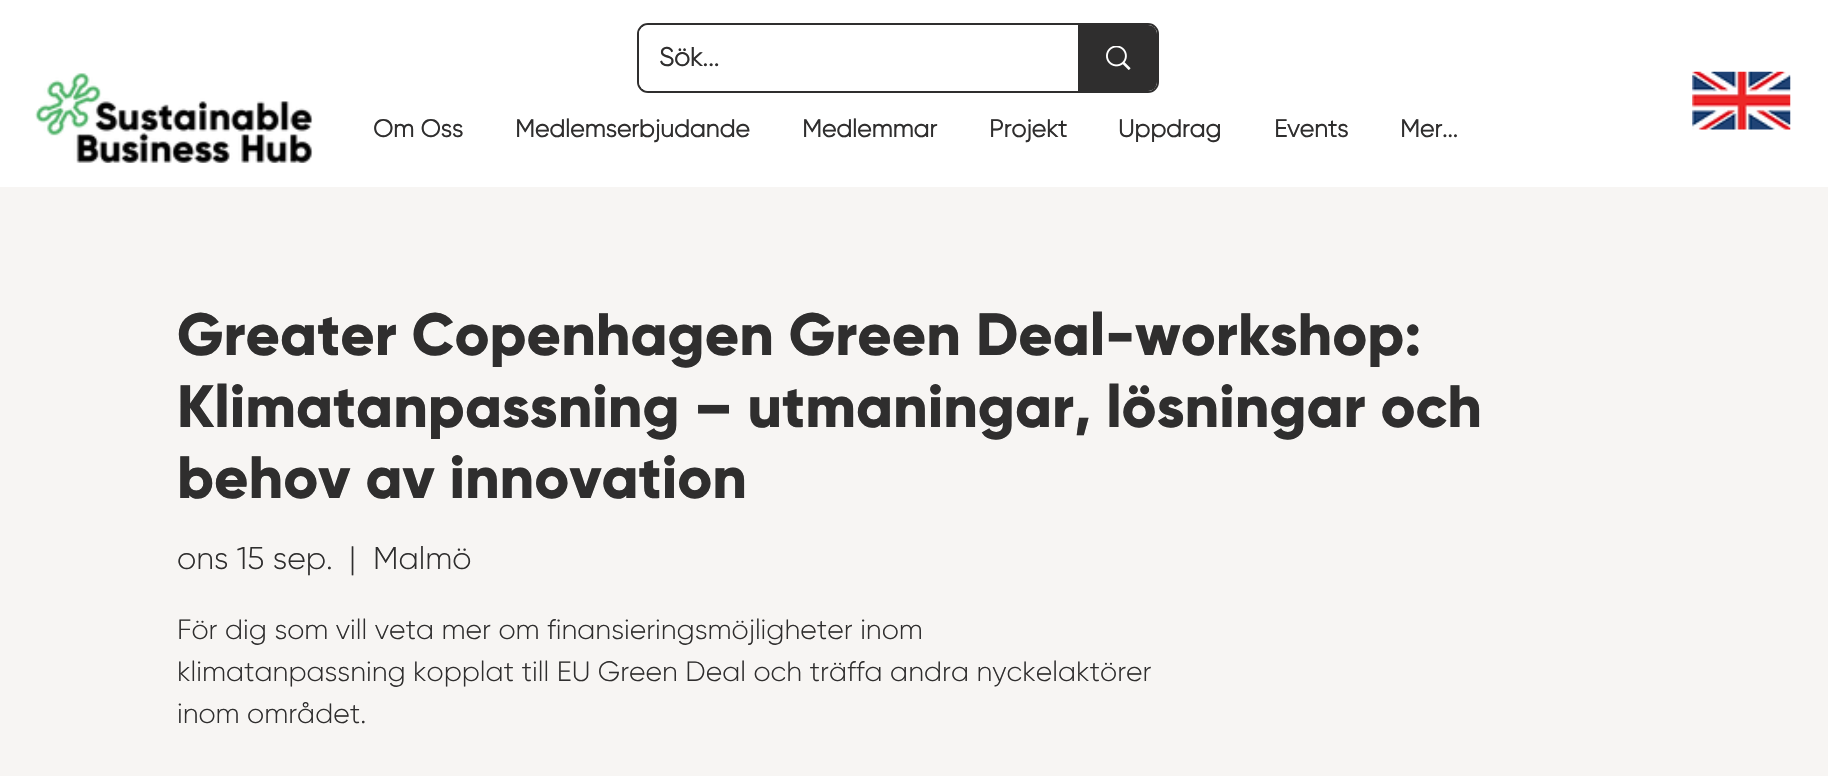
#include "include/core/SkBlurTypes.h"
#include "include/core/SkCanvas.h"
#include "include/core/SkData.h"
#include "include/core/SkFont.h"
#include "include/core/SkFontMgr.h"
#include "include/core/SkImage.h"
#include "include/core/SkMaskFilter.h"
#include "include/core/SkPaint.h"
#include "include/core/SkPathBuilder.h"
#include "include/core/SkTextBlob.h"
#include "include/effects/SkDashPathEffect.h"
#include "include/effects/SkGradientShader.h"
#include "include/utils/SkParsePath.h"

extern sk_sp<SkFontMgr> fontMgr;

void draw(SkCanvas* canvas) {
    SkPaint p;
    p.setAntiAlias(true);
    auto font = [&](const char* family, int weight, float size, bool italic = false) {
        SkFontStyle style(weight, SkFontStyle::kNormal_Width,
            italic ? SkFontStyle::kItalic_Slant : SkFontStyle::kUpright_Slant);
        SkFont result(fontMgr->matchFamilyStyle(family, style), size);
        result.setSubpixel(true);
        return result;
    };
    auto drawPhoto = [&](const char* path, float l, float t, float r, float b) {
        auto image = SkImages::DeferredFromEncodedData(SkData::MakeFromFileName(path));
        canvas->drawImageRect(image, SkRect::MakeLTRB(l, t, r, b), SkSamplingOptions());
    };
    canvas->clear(0xFFFFFFFF);
    p.setStyle(SkPaint::kStroke_Style);
    p.setStrokeWidth(2);
    p.setColor(0xFF2F2E2E);
    canvas->drawRoundRect(SkRect::MakeLTRB(638, 24, 1158, 92), 10, 10, p);
    p.setStyle(SkPaint::kFill_Style);
    p.setColor(0xFFFFFFFF);
    canvas->drawRoundRect(SkRect::MakeLTRB(639, 25, 1157, 91), 9, 9, p);
    auto font1 = font("Gilroy", 700, 26);
    p.setColor(0xFF2F2E2E);
    canvas->drawString("Sök...", 659, 66, font1, p);
    canvas->drawPath(SkPathBuilder().moveTo(1078, 25).lineTo(1148, 25).cubicTo(1153, 25, 1157, 29, 1157, 34).lineTo(1157, 82).cubicTo(1157, 87, 1153, 91, 1148, 91).lineTo(1078, 91).close().detach(), p);
    drawPhoto("media/1.png", 1106, 46, 1131, 70);
    drawPhoto("media/2.png", 35, 73, 313, 163);
    drawPhoto("media/3.png", 1692, 71, 1791, 130);
    auto font2 = font("Gilroy", 700, 24.5f);
    {
        const struct { const char* s; float x, y; } items[] = {
            {"Om Oss", 373, 137},
            {"Medlemserbjudande", 515, 137},
            {"Medlemmar", 802, 137},
            {"Projekt", 989, 137},
            {"Uppdrag", 1118, 137},
            {"Events", 1274, 137},
            {"Mer...", 1400, 137},
        };
        for (auto [s, x, y] : items) {
            canvas->drawString(s, x, y, font2, p);
        }
    }
    p.setColor(0xFFF7F5F3);
    canvas->drawRect(SkRect::MakeLTRB(0, 187, 1828, 776), p);
    auto font3 = font("Gilroy", 800, 59.5f);
    p.setColor(0xFF2F2E2E);
    {
        const struct { const char* s; float x, y; } items[] = {
            {"Greater Copenhagen Green Deal-workshop:", 177, 355},
            {"Klimatanpassning – utmaningar, lösningar och", 177, 427},
            {"behov av innovation", 177, 498},
        };
        for (auto [s, x, y] : items) {
            canvas->drawString(s, x, y, font3, p);
        }
    }
    auto font4 = font("Gilroy", 300, 31.5f);
    {
        const struct { const char* s; float x, y; } items[] = {
            {"ons 15 sep.", 177, 569},
            {"|", 349, 569},
            {"Malmö", 373, 569},
        };
        for (auto [s, x, y] : items) {
            canvas->drawString(s, x, y, font4, p);
        }
    }
    auto font5 = font("Gilroy", 300, 28);
    {
        const struct { const char* s; float x, y; } items[] = {
            {"För dig som vill veta mer om finansieringsmöjligheter inom", 177, 639},
            {"klimatanpassning kopplat till EU Green Deal och träffa andra nyckelaktörer", 177, 681},
            {"inom området.", 177, 723},
        };
        for (auto [s, x, y] : items) {
            canvas->drawString(s, x, y, font5, p);
        }
    }
}
